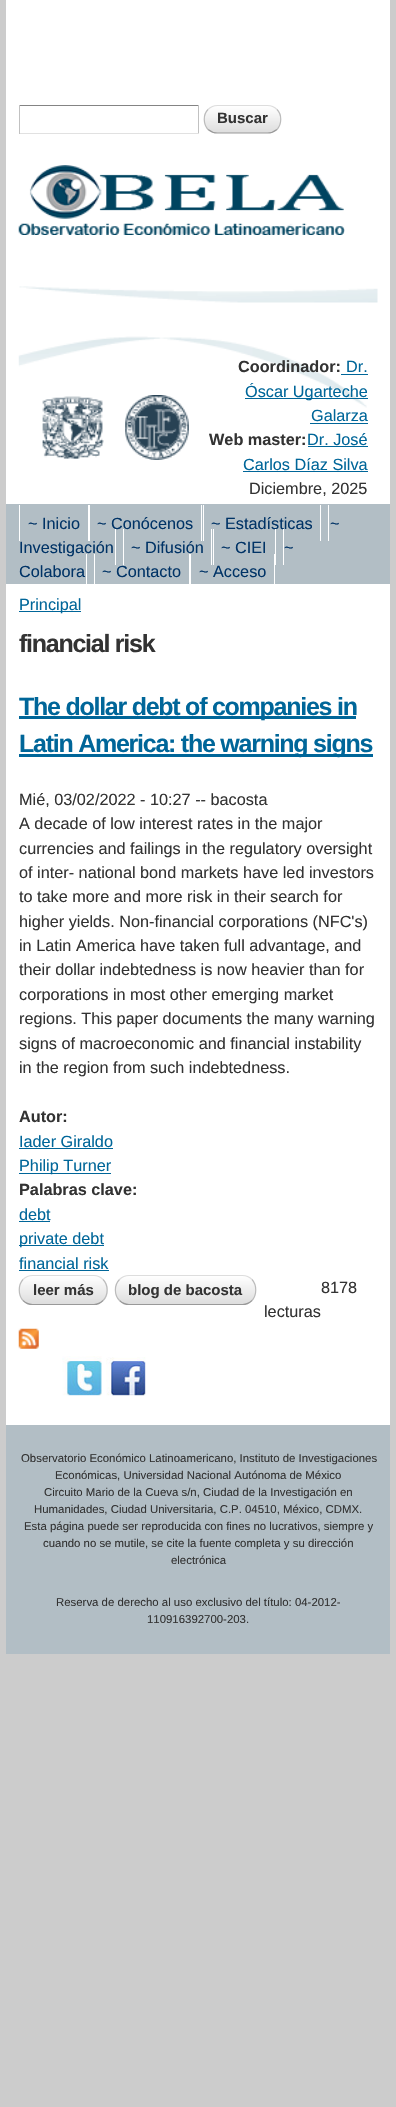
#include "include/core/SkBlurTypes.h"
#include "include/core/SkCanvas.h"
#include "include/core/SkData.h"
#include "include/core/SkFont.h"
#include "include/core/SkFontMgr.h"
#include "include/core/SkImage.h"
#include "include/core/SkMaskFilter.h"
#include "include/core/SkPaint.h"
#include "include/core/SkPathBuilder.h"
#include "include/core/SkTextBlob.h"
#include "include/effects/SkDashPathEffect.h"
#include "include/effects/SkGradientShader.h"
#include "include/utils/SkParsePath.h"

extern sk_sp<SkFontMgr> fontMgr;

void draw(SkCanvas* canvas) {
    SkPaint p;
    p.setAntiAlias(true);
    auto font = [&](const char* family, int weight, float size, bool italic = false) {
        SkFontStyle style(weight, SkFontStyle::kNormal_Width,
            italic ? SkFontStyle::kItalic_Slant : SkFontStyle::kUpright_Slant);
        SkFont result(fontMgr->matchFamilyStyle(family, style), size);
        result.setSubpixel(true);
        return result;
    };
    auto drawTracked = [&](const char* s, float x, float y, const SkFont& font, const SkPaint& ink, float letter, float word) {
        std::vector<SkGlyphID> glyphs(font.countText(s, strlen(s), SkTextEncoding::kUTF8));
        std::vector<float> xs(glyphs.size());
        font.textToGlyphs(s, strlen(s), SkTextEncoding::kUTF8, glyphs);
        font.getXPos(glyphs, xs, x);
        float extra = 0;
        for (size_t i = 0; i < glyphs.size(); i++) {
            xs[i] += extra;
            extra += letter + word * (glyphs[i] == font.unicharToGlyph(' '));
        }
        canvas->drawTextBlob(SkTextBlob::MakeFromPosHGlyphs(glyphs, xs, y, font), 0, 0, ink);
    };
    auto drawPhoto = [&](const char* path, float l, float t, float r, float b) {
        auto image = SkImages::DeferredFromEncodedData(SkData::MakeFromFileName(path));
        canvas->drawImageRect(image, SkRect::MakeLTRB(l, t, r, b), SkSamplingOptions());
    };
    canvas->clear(0xFFCCCCCC);
    {
        const struct { float l, t, r, b; SkColor color; } items[] = {
            {6, 0, 390, 504, 0xFFFFFFFF},
            {19, 105, 199, 106, 0xFF848484},
            {198, 105, 199, 134, 0xFFC1C1C1},
            {19, 133, 199, 134, 0xFFE1E1E1},
            {19, 105, 20, 134, 0xFFC1C1C1},
        };
        for (auto [l, t, r, b, color] : items) {
            p.setColor(color);
            canvas->drawRect(SkRect::MakeLTRB(l, t, r, b), p);
        }
    }
    canvas->save();
    canvas->clipPath(SkPathBuilder().moveTo(218, 105).lineTo(267, 105).cubicTo(274.5f, 105, 281, 111.5f, 281, 119).lineTo(281, 120).cubicTo(281, 127.5f, 274.5f, 134, 267, 134).lineTo(218, 134).cubicTo(210.5f, 134, 204, 127.5f, 204, 120).lineTo(204, 119).cubicTo(204, 111.5f, 210.5f, 105, 218, 105).close().detach(), true);
    {
        const SkColor colors[] = {0xFFFFFFFF, 0xFFDDDDDD};
        const float stops[] = {0, 1};
        const SkPoint ends[] = {{205, 106}, {205, 133}};
        p.setShader(SkGradientShader::MakeLinear(ends, colors, stops, 2, SkTileMode::kClamp));
        p.setAlpha(255);
    }
    canvas->drawRect(SkRect::MakeLTRB(204, 106, 281, 133), p);
    canvas->restore();
    p.setStyle(SkPaint::kStroke_Style);
    p.setStrokeWidth(1.2f);
    p.setShader(nullptr);
    p.setColor(0xFFDDDDDD);
    canvas->drawPath(SkPathBuilder().moveTo(208, 109.5f).cubicTo(210.5f, 107, 214, 105.5f, 217.5f, 105.5f).lineTo(267.5f, 105.5f).cubicTo(271, 105.5f, 274.5f, 107, 277, 109.5f).detach(), p);
    p.setColor(0xFFBBBBBB);
    canvas->drawPath(SkPathBuilder().moveTo(277, 109.5f).cubicTo(282, 114.5f, 282, 124, 277, 129.5f).detach(), p);
    p.setColor(0xFF999999);
    canvas->drawPath(SkPathBuilder().moveTo(277, 129.5f).cubicTo(274.5f, 131.5f, 271, 133, 267.5f, 133).lineTo(217.5f, 133).cubicTo(214, 133, 210.5f, 131.5f, 208, 129.5f).detach(), p);
    p.setColor(0xFFBBBBBB);
    canvas->drawPath(SkPathBuilder().moveTo(208, 129.5f).cubicTo(203, 124, 203, 114.5f, 208, 109.5f).detach(), p);
    auto font1 = font("Liberation Sans", 700, 15);
    p.setStyle(SkPaint::kFill_Style);
    p.setColor(0xFF333333);
    canvas->drawString("Buscar", 217, 123, font1, p);
    drawPhoto("media/1.png", 19, 286, 378, 303);
    drawPhoto("media/2.png", 18, 165, 345, 235);
    drawPhoto("media/3.png", 18, 336, 367, 408);
    drawPhoto("media/4.png", 42, 396, 104, 459);
    drawPhoto("media/5.png", 125, 395, 189, 460);
    auto font2 = font("Liberation Sans", 700, 16.25f);
    canvas->drawString("Coordinador:", 238, 372, font2, p);
    auto font3 = font("Liberation Sans", 400, 16.25f);
    p.setColor(0xFF006699);
    canvas->drawString("Dr.", 346, 372, font3, p);
    canvas->drawRect(SkRect::MakeLTRB(341, 374, 368, 375), p);
    canvas->drawRect(SkRect::MakeLTRB(245, 398, 368, 399), p);
    canvas->drawString("Óscar Ugarteche", 245, 397, font3, p);
    canvas->drawString("Galarza", 311, 421, font3, p);
    canvas->drawRect(SkRect::MakeLTRB(310, 423, 368, 424), p);
    p.setColor(0xFF333333);
    canvas->drawString("Web master:", 209, 445, font2, p);
    p.setColor(0xFF006699);
    canvas->drawString("Dr. José", 307, 445, font3, p);
    canvas->drawRect(SkRect::MakeLTRB(308, 446, 368, 447), p);
    canvas->drawString("Carlos Díaz Silva", 243, 470, font3, p);
    canvas->drawRect(SkRect::MakeLTRB(243, 471, 368, 472), p);
    p.setColor(0xFF333333);
    canvas->drawString("Diciembre, 2025", 249, 494, font3, p);
    p.setColor(0xFFB2BEC5);
    canvas->drawRect(SkRect::MakeLTRB(6, 504, 390, 584), p);
    p.setColor(0xFF003366);
    canvas->drawString("~ Inicio", 28, 529, font3, p);
    p.setColor(0xFFFFFFFF);
    canvas->drawRect(SkRect::MakeLTRB(19, 505, 20, 541), p);
    p.setColor(0xFF003366);
    canvas->drawString("~ Conócenos", 97, 529, font3, p);
    p.setColor(0xFFFFFFFF);
    canvas->drawRect(SkRect::MakeLTRB(88, 505, 90, 541), p);
    canvas->drawRect(SkRect::MakeLTRB(201, 505, 202, 541), p);
    p.setColor(0xFF003366);
    canvas->drawString("~ Estadísticas", 211, 529, font3, p);
    p.setColor(0xFFFFFFFF);
    canvas->drawRect(SkRect::MakeLTRB(320, 505, 321, 541), p);
    canvas->drawRect(SkRect::MakeLTRB(203, 505, 204, 541), p);
    p.setColor(0xFF003366);
    canvas->drawString("~", 330, 529, font3, p);
    p.setColor(0xFFFFFFFF);
    canvas->drawRect(SkRect::MakeLTRB(328, 505, 329, 541), p);
    p.setColor(0xFF003366);
    canvas->drawString("Investigación", 19, 553, font3, p);
    p.setColor(0xFFFFFFFF);
    canvas->drawRect(SkRect::MakeLTRB(115, 529, 116, 565), p);
    p.setColor(0xFF003366);
    canvas->drawString("~ Difusión", 131, 553, font3, p);
    p.setColor(0xFFFFFFFF);
    canvas->drawRect(SkRect::MakeLTRB(211, 529, 212, 565), p);
    canvas->drawRect(SkRect::MakeLTRB(123, 529, 124, 565), p);
    p.setColor(0xFF003366);
    canvas->drawString("~ CIEI", 221, 553, font3, p);
    p.setColor(0xFFFFFFFF);
    canvas->drawRect(SkRect::MakeLTRB(275, 529, 276, 565), p);
    canvas->drawRect(SkRect::MakeLTRB(213, 529, 214, 565), p);
    p.setColor(0xFF003366);
    canvas->drawString("~", 284, 553, font3, p);
    p.setColor(0xFFFFFFFF);
    canvas->drawRect(SkRect::MakeLTRB(283, 529, 284, 565), p);
    p.setColor(0xFF003366);
    canvas->drawString("Colabora", 19, 577, font3, p);
    p.setColor(0xFFFFFFFF);
    canvas->drawRect(SkRect::MakeLTRB(6, 584, 390, 1425), p);
    canvas->drawRect(SkRect::MakeLTRB(86, 554, 87, 590), p);
    p.setColor(0xFF003366);
    canvas->drawString("~ Contacto", 102, 577, font3, p);
    p.setColor(0xFFFFFFFF);
    canvas->drawRect(SkRect::MakeLTRB(189, 554, 191, 590), p);
    canvas->drawRect(SkRect::MakeLTRB(94, 554, 95, 590), p);
    p.setColor(0xFF003366);
    canvas->drawString("~ Acceso", 199, 577, font3, p);
    p.setColor(0xFFFFFFFF);
    canvas->drawRect(SkRect::MakeLTRB(274, 554, 275, 590), p);
    p.setColor(0xFF006699);
    canvas->drawRect(SkRect::MakeLTRB(19, 611, 81, 612), p);
    canvas->drawString("Principal", 19, 610, font3, p);
    auto font4 = font("Liberation Sans", 700, 25);
    p.setColor(0xFF333333);
    drawTracked("financial risk", 19, 652, font4, p, -1.25f, 0);
    p.setColor(0xFF006699);
    canvas->drawRect(SkRect::MakeLTRB(19, 716, 356, 719), p);
    drawTracked("The dollar debt of companies in", 19, 715, font4, p, -1.25f, 0);
    canvas->drawRect(SkRect::MakeLTRB(19, 754, 373, 757), p);
    drawTracked("Latin America: the warning signs", 19, 752, font4, p, -1.25f, 0);
    p.setColor(0xFF333333);
    {
        const struct { const char* s; float x, y; } items[] = {
            {"Mié, 03/02/2022 - 10:27 -- bacosta", 19, 805},
            {"A decade of low interest rates in the major", 19, 829},
            {"currencies and failings in the regulatory oversight", 19, 854},
            {"of inter- national bond markets have led investors", 19, 878},
            {"to take more and more risk in their search for", 19, 902},
            {"higher yields. Non-financial corporations (NFC's)", 19, 927},
            {"in Latin America have taken full advantage, and", 19, 951},
            {"their dollar indebtedness is now heavier than for", 19, 975},
            {"corporations in most other emerging market", 19, 1000},
            {"regions. This paper documents the many warning", 19, 1024},
            {"signs of macroeconomic and financial instability", 19, 1049},
            {"in the region from such indebtedness.", 19, 1073},
        };
        for (auto [s, x, y] : items) {
            canvas->drawString(s, x, y, font3, p);
        }
    }
    canvas->drawString("Autor:", 19, 1122, font2, p);
    p.setColor(0xFF006699);
    canvas->drawString("Iader Giraldo", 19, 1147, font3, p);
    canvas->drawRect(SkRect::MakeLTRB(19, 1148, 113, 1149), p);
    canvas->drawRect(SkRect::MakeLTRB(19, 1173, 111, 1174), p);
    canvas->drawString("Philip Turner", 19, 1171, font3, p);
    p.setColor(0xFF333333);
    canvas->drawString("Palabras clave:", 19, 1195, font2, p);
    p.setColor(0xFF006699);
    canvas->drawString("debt", 19, 1220, font3, p);
    canvas->drawRect(SkRect::MakeLTRB(19, 1221, 50, 1222), p);
    canvas->drawRect(SkRect::MakeLTRB(19, 1245, 104, 1246), p);
    canvas->drawString("private debt", 19, 1244, font3, p);
    canvas->drawString("financial risk", 19, 1269, font3, p);
    canvas->drawRect(SkRect::MakeLTRB(19, 1270, 109, 1271), p);
    canvas->save();
    canvas->clipPath(SkPathBuilder().moveTo(33, 1275).lineTo(94, 1275).cubicTo(101.5f, 1275, 108, 1281.5f, 108, 1289).lineTo(108, 1291).cubicTo(108, 1298.5f, 101.5f, 1305, 94, 1305).lineTo(33, 1305).cubicTo(25.5f, 1305, 19, 1298.5f, 19, 1291).lineTo(19, 1289).cubicTo(19, 1281.5f, 25.5f, 1275, 33, 1275).close().detach(), true);
    {
        const SkColor colors[] = {0xFFFFFFFF, 0xFFDDDDDD};
        const float stops[] = {0, 1};
        const SkPoint ends[] = {{20, 1276}, {20, 1304}};
        p.setShader(SkGradientShader::MakeLinear(ends, colors, stops, 2, SkTileMode::kClamp));
        p.setAlpha(255);
    }
    canvas->drawRect(SkRect::MakeLTRB(19, 1276, 108, 1304), p);
    canvas->restore();
    p.setStyle(SkPaint::kStroke_Style);
    p.setShader(nullptr);
    p.setColor(0xFFDDDDDD);
    canvas->drawPath(SkPathBuilder().moveTo(23, 1279.5f).cubicTo(25.5f, 1277, 29, 1275.5f, 32.5f, 1275.5f).lineTo(94, 1275.5f).cubicTo(97, 1275.5f, 100.5f, 1277, 103, 1279.5f).detach(), p);
    p.setColor(0xFFBBBBBB);
    canvas->drawPath(SkPathBuilder().moveTo(103, 1279.5f).cubicTo(108.5f, 1285, 108.5f, 1295, 103, 1300.5f).detach(), p);
    p.setColor(0xFF999999);
    canvas->drawPath(SkPathBuilder().moveTo(103, 1300.5f).cubicTo(100.5f, 1303, 97, 1304.5f, 94, 1304.5f).lineTo(32.5f, 1304.5f).cubicTo(29, 1304.5f, 25.5f, 1303, 23, 1300.5f).detach(), p);
    p.setColor(0xFFBBBBBB);
    canvas->drawPath(SkPathBuilder().moveTo(23, 1300.5f).cubicTo(18, 1295, 18, 1285, 23, 1279.5f).detach(), p);
    p.setStyle(SkPaint::kFill_Style);
    p.setColor(0xFF333333);
    canvas->drawString("leer más", 33, 1295, font1, p);
    canvas->save();
    canvas->clipPath(SkPathBuilder().moveTo(129, 1275).lineTo(242, 1275).cubicTo(249.5f, 1275, 256, 1281.5f, 256, 1289).lineTo(256, 1291).cubicTo(256, 1298.5f, 249.5f, 1305, 242, 1305).lineTo(129, 1305).cubicTo(121.5f, 1305, 115, 1298.5f, 115, 1291).lineTo(115, 1289).cubicTo(115, 1281.5f, 121.5f, 1275, 129, 1275).close().detach(), true);
    {
        const SkColor colors[] = {0xFFFFFFFF, 0xFFDDDDDD};
        const float stops[] = {0, 1};
        const SkPoint ends[] = {{116, 1276}, {116, 1304}};
        p.setShader(SkGradientShader::MakeLinear(ends, colors, stops, 2, SkTileMode::kClamp));
        p.setAlpha(255);
    }
    canvas->drawRect(SkRect::MakeLTRB(115, 1276, 256, 1304), p);
    canvas->restore();
    p.setStyle(SkPaint::kStroke_Style);
    p.setShader(nullptr);
    p.setColor(0xFFDDDDDD);
    canvas->drawPath(SkPathBuilder().moveTo(119.5f, 1279.5f).cubicTo(122, 1277, 125.5f, 1275.5f, 129, 1275.5f).lineTo(242.5f, 1275.5f).cubicTo(246, 1275.5f, 249.5f, 1277, 252, 1279.5f).detach(), p);
    p.setColor(0xFFBBBBBB);
    canvas->drawPath(SkPathBuilder().moveTo(252, 1279.5f).cubicTo(257, 1285, 257, 1295, 252, 1300.5f).detach(), p);
    p.setColor(0xFF999999);
    canvas->drawPath(SkPathBuilder().moveTo(252, 1300.5f).cubicTo(249.5f, 1303, 246, 1304.5f, 242.5f, 1304.5f).lineTo(129, 1304.5f).cubicTo(125.5f, 1304.5f, 122, 1303, 119.5f, 1300.5f).detach(), p);
    p.setColor(0xFFBBBBBB);
    canvas->drawPath(SkPathBuilder().moveTo(119.5f, 1300.5f).cubicTo(114, 1295, 114, 1285, 119.5f, 1279.5f).detach(), p);
    p.setStyle(SkPaint::kFill_Style);
    p.setColor(0xFF333333);
    canvas->drawString("blog de bacosta", 128, 1295, font1, p);
    canvas->drawString("8178", 321, 1293, font3, p);
    canvas->drawString("lecturas", 264, 1317, font3, p);
    drawPhoto("media/6.png", 18, 1328, 39, 1349);
    drawPhoto("media/7.png", 62, 1356, 102, 1396);
    drawPhoto("media/8.png", 106, 1357, 146, 1396);
    p.setColor(0xFFB2BEC5);
    canvas->drawRect(SkRect::MakeLTRB(6, 1425, 390, 1654), p);
    auto font5 = font("Liberation Sans", 400, 11.4f);
    p.setColor(0xFF333333);
    {
        const struct { const char* s; float x, y; } items[] = {
            {"Observatorio Económico Latinoamericano, Instituto de Investigaciones", 21, 1462},
            {"Económicas, Universidad Nacional Autónoma de México", 55, 1479},
            {"Circuito Mario de la Cueva s/n, Ciudad de la Investigación en", 44, 1496},
            {"Humanidades, Ciudad Universitaria, C.P. 04510, México, CDMX.", 34, 1513},
            {"Esta página puede ser reproducida con fines no lucrativos, siempre y", 24, 1530},
            {"cuando no se mutile, se cite la fuente completa y su dirección", 43, 1547},
            {"electrónica", 171, 1564},
            {"Reserva de derecho al uso exclusivo del título: 04-2012-", 56, 1606},
            {"110916392700-203.", 147, 1623},
        };
        for (auto [s, x, y] : items) {
            canvas->drawString(s, x, y, font5, p);
        }
    }
}
